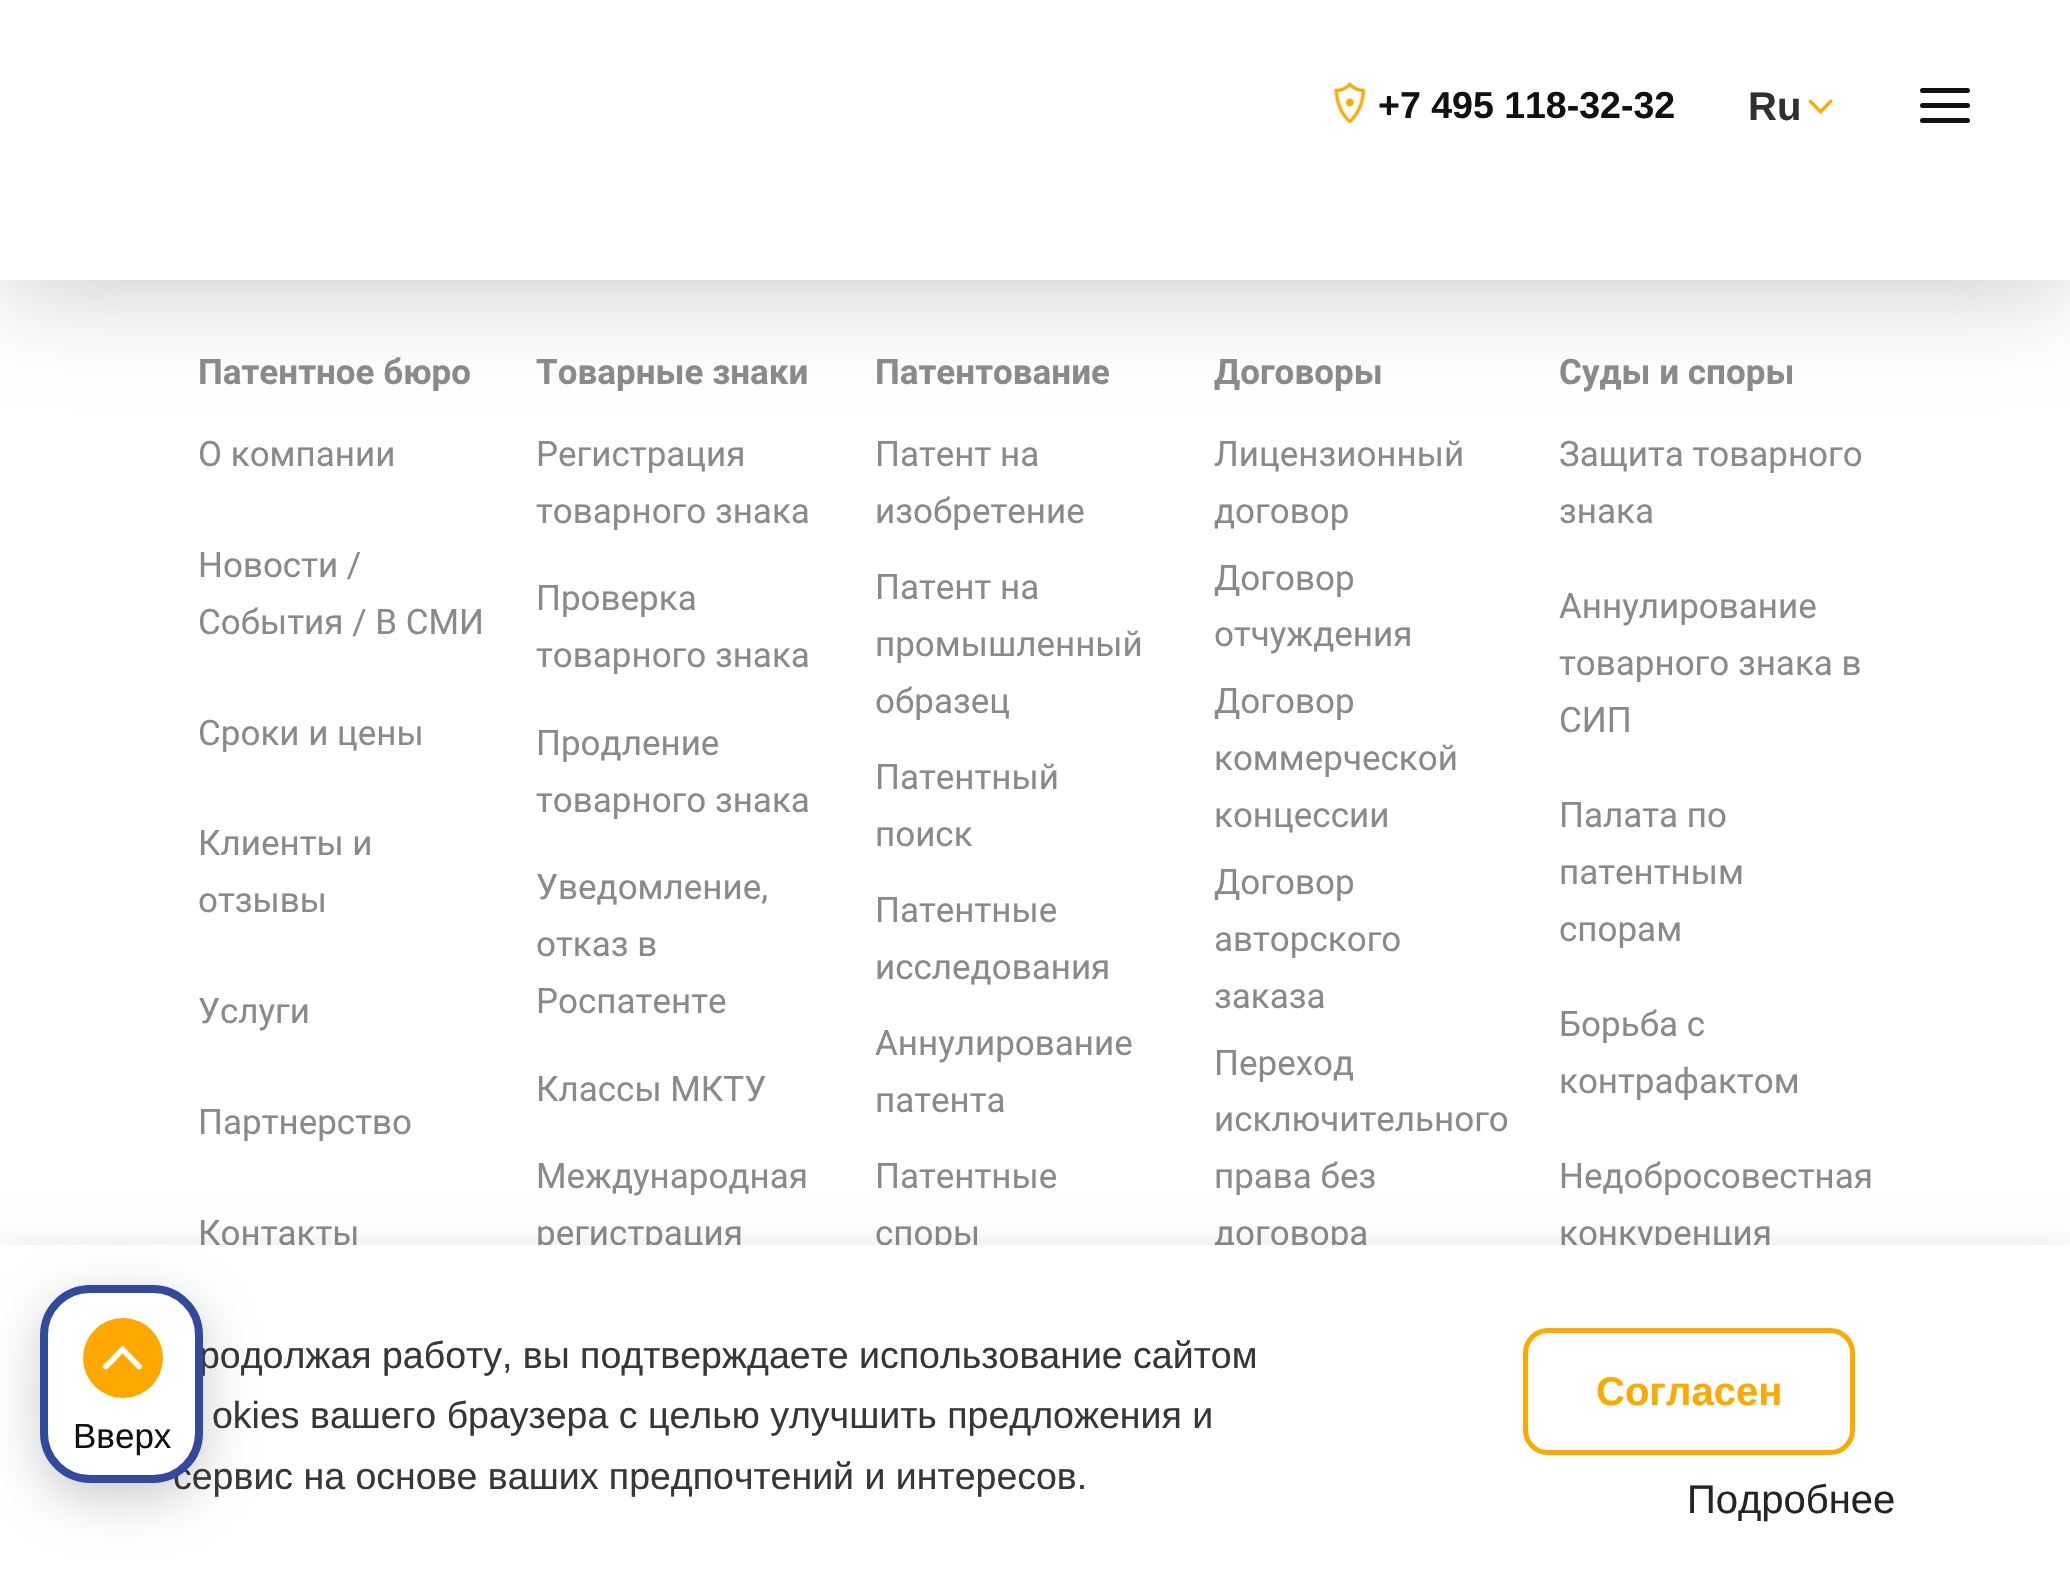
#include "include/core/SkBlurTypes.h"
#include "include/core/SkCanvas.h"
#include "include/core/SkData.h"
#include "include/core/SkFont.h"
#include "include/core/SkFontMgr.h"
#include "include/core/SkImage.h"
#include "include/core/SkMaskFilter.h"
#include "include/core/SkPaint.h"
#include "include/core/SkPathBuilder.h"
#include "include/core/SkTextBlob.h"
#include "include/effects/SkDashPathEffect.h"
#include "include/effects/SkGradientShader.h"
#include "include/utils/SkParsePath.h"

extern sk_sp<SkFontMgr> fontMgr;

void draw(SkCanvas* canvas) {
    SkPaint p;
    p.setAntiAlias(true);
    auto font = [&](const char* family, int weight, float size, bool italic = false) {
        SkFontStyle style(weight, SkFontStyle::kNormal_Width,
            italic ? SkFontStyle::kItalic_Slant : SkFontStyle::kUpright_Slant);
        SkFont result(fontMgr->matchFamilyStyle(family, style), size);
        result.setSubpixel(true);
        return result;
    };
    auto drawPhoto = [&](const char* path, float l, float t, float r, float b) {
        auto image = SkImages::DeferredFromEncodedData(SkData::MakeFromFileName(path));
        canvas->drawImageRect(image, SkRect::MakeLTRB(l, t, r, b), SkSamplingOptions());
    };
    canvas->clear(0xFFFFFFFF);
    p.setColor(0x33000000);
    p.setMaskFilter(SkMaskFilter::MakeBlur(kNormal_SkBlurStyle, 50));
    canvas->drawRect(SkRect::MakeLTRB(0, 10, 2070, 290), p);
    p.setMaskFilter(nullptr);
    p.setColor(0xFFFFFFFF);
    canvas->drawRect(SkRect::MakeLTRB(0, 0, 2070, 280), p);
    drawPhoto("media/1.png", 1334, 82, 1366, 124);
    auto font1 = font("Liberation Sans", 700, 37.5f);
    p.setColor(0xFF111111);
    canvas->drawString("+7 495 118-32-32", 1378, 118, font1, p);
    auto font2 = font("Liberation Sans", 700, 40);
    p.setColor(0xFF303030);
    canvas->drawString("Ru", 1748, 120, font2, p);
    drawPhoto("media/2.png", 1808, 99, 1833, 115);
    p.setColor(0xFF111111);
    canvas->drawRoundRect(SkRect::MakeLTRB(1920, 88, 1970, 93), 2.5f, 2.5f, p);
    canvas->drawRoundRect(SkRect::MakeLTRB(1920, 103, 1970, 108), 2.5f, 2.5f, p);
    canvas->drawRoundRect(SkRect::MakeLTRB(1920, 118, 1970, 123), 2.5f, 2.5f, p);
    auto font3 = font("Roboto", 700, 35);
    p.setColor(0xFF8A8A8A);
    canvas->drawString("Патентное бюро", 198, 384, font3, p);
    auto font4 = font("Roboto", 400, 35);
    {
        const struct { const char* s; float x, y; } items[] = {
            {"О компании", 198, 466},
            {"Новости /", 198, 577},
            {"События / В СМИ", 198, 634},
            {"Сроки и цены", 198, 745},
            {"Клиенты и", 198, 855},
            {"отзывы", 198, 912},
            {"Услуги", 198, 1023},
            {"Партнерство", 198, 1134},
            {"Контакты", 198, 1245},
        };
        for (auto [s, x, y] : items) {
            canvas->drawString(s, x, y, font4, p);
        }
    }
    canvas->drawString("Товарные знаки", 536, 384, font3, p);
    {
        const struct { const char* s; float x, y; } items[] = {
            {"Регистрация", 536, 466},
            {"товарного знака", 536, 523},
            {"Проверка", 536, 610},
            {"товарного знака", 536, 667},
            {"Продление", 536, 755},
            {"товарного знака", 536, 812},
            {"Уведомление,", 536, 899},
            {"отказ в", 536, 956},
            {"Роспатенте", 536, 1013},
            {"Классы МКТУ", 536, 1101},
            {"Международная", 536, 1188},
            {"регистрация", 536, 1245},
        };
        for (auto [s, x, y] : items) {
            canvas->drawString(s, x, y, font4, p);
        }
    }
    canvas->drawString("Патентование", 875, 384, font3, p);
    {
        const struct { const char* s; float x, y; } items[] = {
            {"Патент на", 875, 466},
            {"изобретение", 875, 523},
            {"Патент на", 875, 599},
            {"промышленный", 875, 656},
            {"образец", 875, 713},
            {"Патентный", 875, 789},
            {"поиск", 875, 846},
            {"Патентные", 875, 922},
            {"исследования", 875, 979},
            {"Аннулирование", 875, 1055},
            {"патента", 875, 1112},
            {"Патентные", 875, 1188},
            {"споры", 875, 1245},
        };
        for (auto [s, x, y] : items) {
            canvas->drawString(s, x, y, font4, p);
        }
    }
    canvas->drawString("Договоры", 1214, 384, font3, p);
    {
        const struct { const char* s; float x, y; } items[] = {
            {"Лицензионный", 1214, 466},
            {"договор", 1214, 523},
            {"Договор", 1214, 590},
            {"отчуждения", 1214, 646},
            {"Договор", 1214, 713},
            {"коммерческой", 1214, 770},
            {"концессии", 1214, 827},
            {"Договор", 1214, 894},
            {"авторского", 1214, 951},
            {"заказа", 1214, 1008},
            {"Переход", 1214, 1075},
            {"исключительного", 1214, 1131},
            {"права без", 1214, 1188},
            {"договора", 1214, 1245},
        };
        for (auto [s, x, y] : items) {
            canvas->drawString(s, x, y, font4, p);
        }
    }
    canvas->drawString("Суды и споры", 1559, 384, font3, p);
    {
        const struct { const char* s; float x, y; } items[] = {
            {"Защита товарного", 1559, 466},
            {"знака", 1559, 523},
            {"Аннулирование", 1559, 618},
            {"товарного знака в", 1559, 675},
            {"СИП", 1559, 732},
            {"Палата по", 1559, 827},
            {"патентным", 1559, 884},
            {"спорам", 1559, 941},
            {"Борьба с", 1559, 1036},
            {"контрафактом", 1559, 1093},
            {"Недобросовестная", 1559, 1188},
            {"конкуренция", 1559, 1245},
        };
        for (auto [s, x, y] : items) {
            canvas->drawString(s, x, y, font4, p);
        }
    }
    p.setColor(0x26000000);
    p.setMaskFilter(SkMaskFilter::MakeBlur(kNormal_SkBlurStyle, 19));
    canvas->drawRect(SkRect::MakeLTRB(0, 1255, 2070, 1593), p);
    p.setMaskFilter(nullptr);
    p.setColor(0xFFFFFFFF);
    canvas->drawRect(SkRect::MakeLTRB(0, 1245, 2070, 1581), p);
    p.setColor(0x33000000);
    p.setMaskFilter(SkMaskFilter::MakeBlur(kNormal_SkBlurStyle, 25));
    canvas->drawRoundRect(SkRect::MakeLTRB(40, 1300, 203, 1498), 50, 50, p);
    p.setMaskFilter(nullptr);
    auto font5 = font("Liberation Sans", 400, 37.5f);
    p.setColor(0xFF373737);
    canvas->drawString("родолжая работу, вы подтверждаете использование сайтом", 199, 1368, font5, p);
    canvas->drawString("сервис на основе ваших предпочтений и интересов.", 173, 1489, font5, p);
    p.setColor(0xFFFFFFFF);
    canvas->drawRoundRect(SkRect::MakeLTRB(44, 1289, 199, 1479), 46, 46, p);
    p.setStyle(SkPaint::kStroke_Style);
    p.setStrokeWidth(8);
    p.setColor(0xFF324A9E);
    canvas->drawRoundRect(SkRect::MakeLTRB(44, 1289, 199, 1479), 46, 46, p);
    p.setStyle(SkPaint::kFill_Style);
    p.setColor(0xFFFFA800);
    canvas->drawCircle(123, 1358, 40, p);
    drawPhoto("media/3.png", 102, 1345, 143, 1370);
    auto font6 = font("Liberation Sans", 400, 35);
    p.setColor(0xFF111111);
    canvas->drawString("Вверх", 73, 1448, font6, p);
    p.setColor(0xFF373737);
    canvas->drawString("okies вашего браузера с целью улучшить предложения и", 212, 1428, font5, p);
    p.setStyle(SkPaint::kStroke_Style);
    p.setStrokeWidth(5);
    p.setColor(0xFFFFA800);
    canvas->drawRoundRect(SkRect::MakeLTRB(1525.5f, 1330.5f, 1852.5f, 1452.5f), 22.5f, 22.5f, p);
    p.setStyle(SkPaint::kFill_Style);
    canvas->drawString("Согласен", 1596, 1405, font2, p);
    auto font7 = font("Liberation Sans", 400, 40);
    p.setColor(0xFF212529);
    canvas->drawString("Подробнее", 1687, 1513, font7, p);
}
